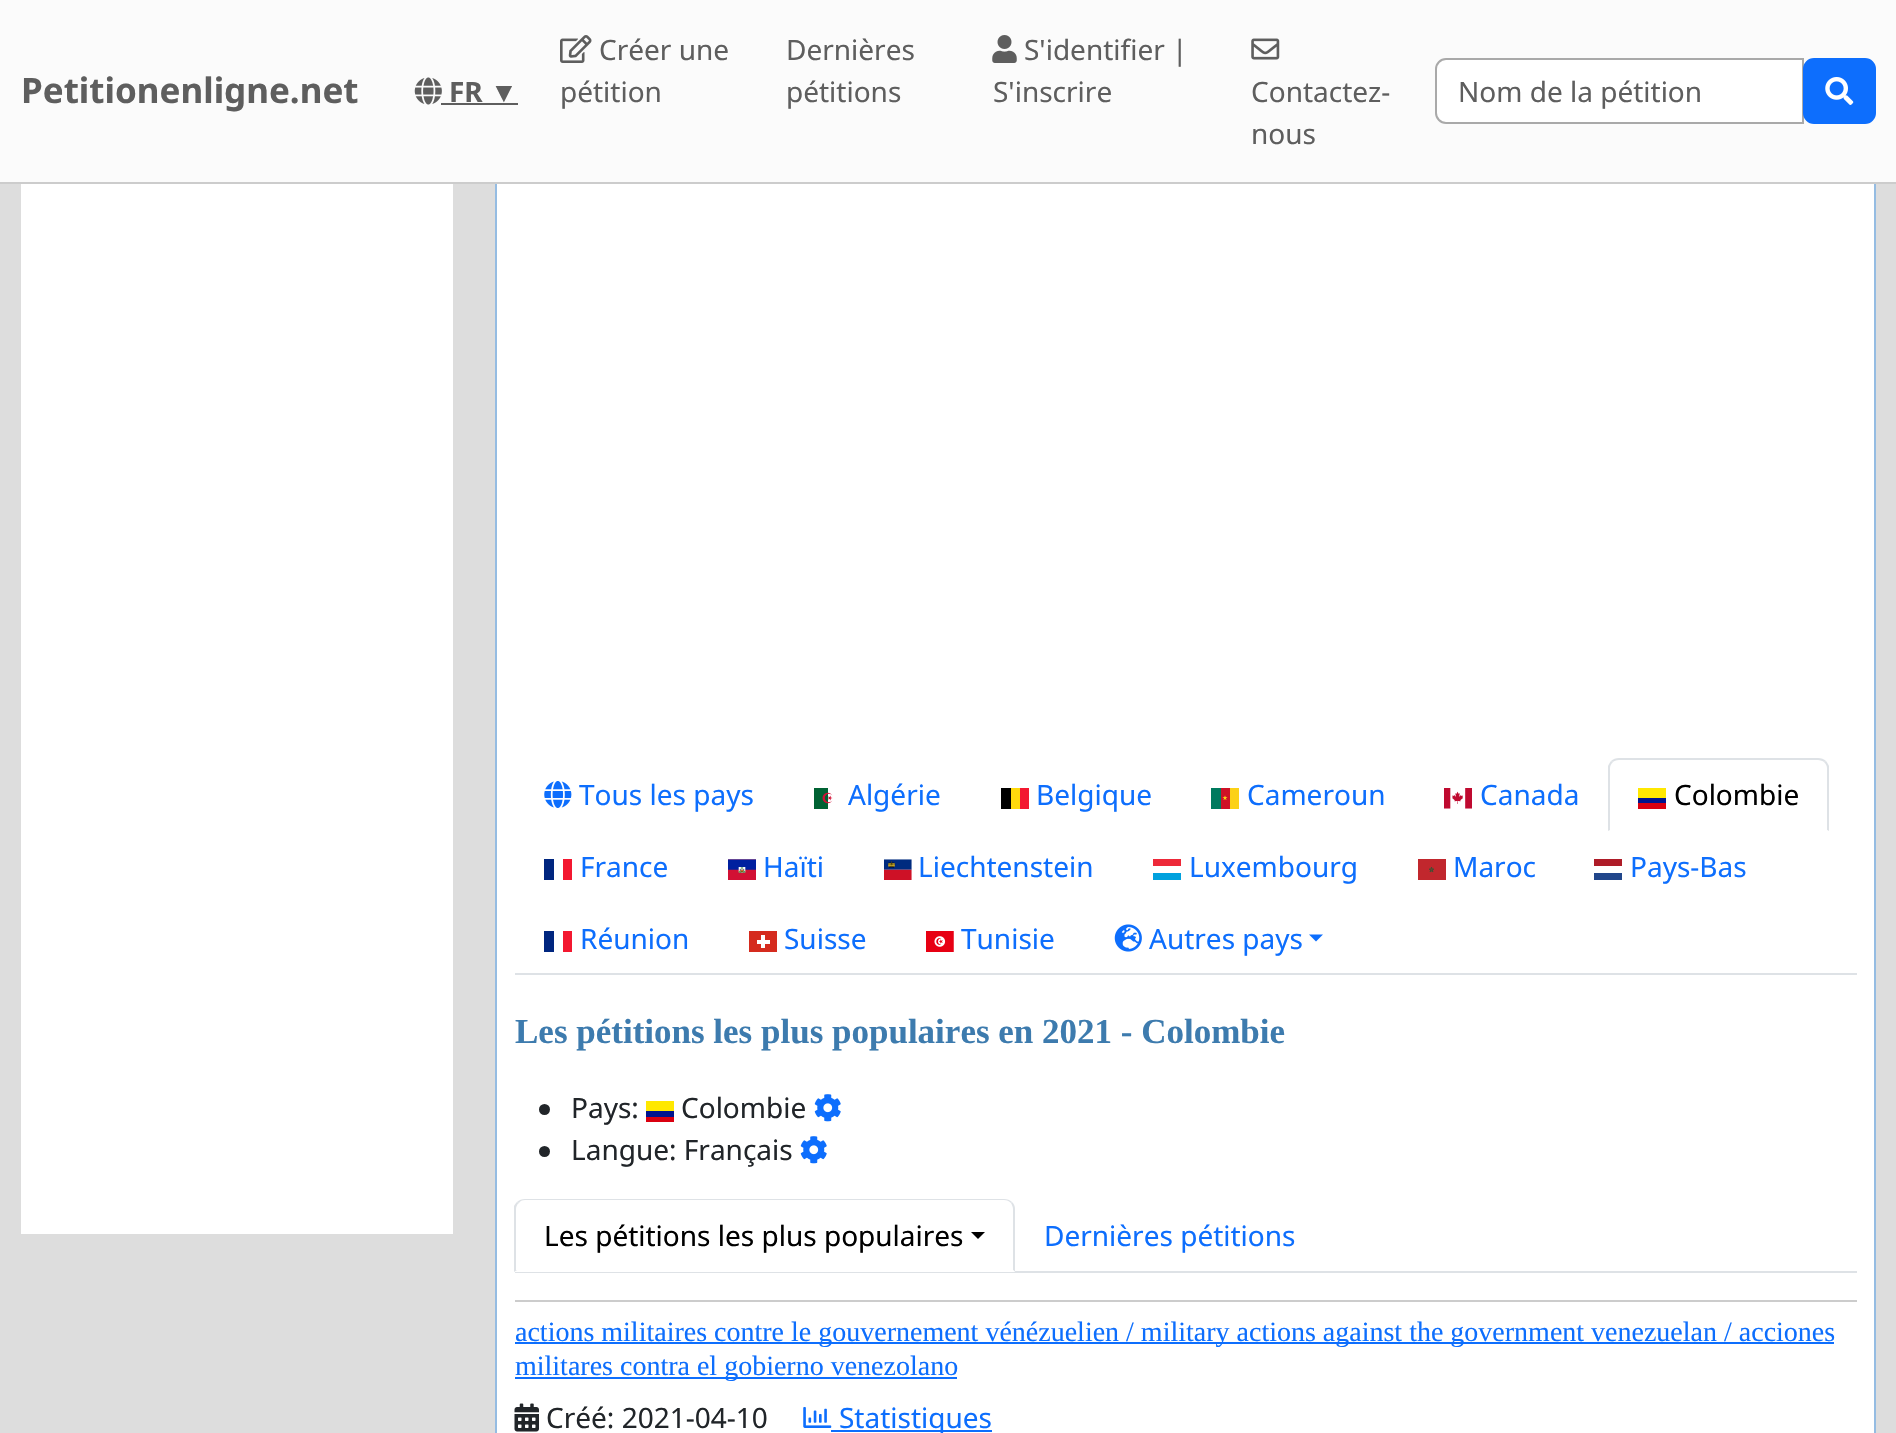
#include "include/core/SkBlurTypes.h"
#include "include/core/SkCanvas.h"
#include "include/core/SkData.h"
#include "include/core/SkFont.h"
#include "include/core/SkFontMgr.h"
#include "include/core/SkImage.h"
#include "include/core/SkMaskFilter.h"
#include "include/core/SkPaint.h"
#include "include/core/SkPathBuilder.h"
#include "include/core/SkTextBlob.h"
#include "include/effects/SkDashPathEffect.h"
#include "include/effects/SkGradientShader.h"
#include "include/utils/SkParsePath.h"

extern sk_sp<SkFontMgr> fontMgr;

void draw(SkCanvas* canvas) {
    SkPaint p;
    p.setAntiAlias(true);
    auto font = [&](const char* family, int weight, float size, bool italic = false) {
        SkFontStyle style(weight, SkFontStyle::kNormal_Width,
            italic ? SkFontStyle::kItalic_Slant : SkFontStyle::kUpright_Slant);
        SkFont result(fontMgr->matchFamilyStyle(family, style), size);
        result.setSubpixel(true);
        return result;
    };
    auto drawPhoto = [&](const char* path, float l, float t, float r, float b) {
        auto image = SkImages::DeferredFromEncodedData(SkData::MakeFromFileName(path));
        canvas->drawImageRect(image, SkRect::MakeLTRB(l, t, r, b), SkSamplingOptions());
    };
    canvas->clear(0xFFDDDDDD);
    p.setColor(0xFFFBFBFB);
    canvas->drawRect(SkRect::MakeLTRB(0, 0, 1896, 182), p);
    p.setColor(0xFFCCCCCC);
    canvas->drawRect(SkRect::MakeLTRB(0, 182, 1896, 184), p);
    auto font1 = font("Noto Sans", 700, 35);
    p.setColor(0xFF5E5E5E);
    canvas->drawString("Petitionenligne.net", 21, 103, font1, p);
    drawPhoto("media/1.png", 414, 77, 442, 105);
    auto font2 = font("Noto Sans", 700, 28);
    canvas->drawString("FR", 449, 102, font2, p);
    canvas->drawRect(SkRect::MakeLTRB(441, 103, 518, 105), p);
    auto font3 = font("Liberation Sans", 400, 28);
    canvas->drawString("▼", 490, 102, font3, p);
    drawPhoto("media/2.png", 560, 35, 592, 63);
    auto font4 = font("Noto Sans", 400, 28);
    {
        const struct { const char* s; float x, y; } items[] = {
            {"Créer une", 599, 60},
            {"pétition", 560, 102},
            {"Dernières", 786, 60},
            {"pétitions", 786, 102},
        };
        for (auto [s, x, y] : items) {
            canvas->drawString(s, x, y, font4, p);
        }
    }
    drawPhoto("media/3.png", 992, 35, 1017, 63);
    canvas->drawString("S'identifier |", 1024, 60, font4, p);
    canvas->drawString("S'inscrire", 993, 102, font4, p);
    drawPhoto("media/4.png", 1251, 38, 1280, 60);
    canvas->drawString("Contactez-", 1251, 102, font4, p);
    canvas->drawString("nous", 1251, 144, font4, p);
    p.setColor(0xFFFFFFFF);
    canvas->drawPath(SkPathBuilder().moveTo(1446, 59).lineTo(1803, 59).lineTo(1803, 123).lineTo(1446, 123).cubicTo(1440.5f, 123, 1436, 118.5f, 1436, 113).lineTo(1436, 69).cubicTo(1436, 63.5f, 1440.5f, 59, 1446, 59).close().detach(), p);
    p.setStyle(SkPaint::kStroke_Style);
    p.setStrokeWidth(2);
    p.setColor(0xFFA9A9A9);
    canvas->drawPath(SkPathBuilder().moveTo(1446, 59).lineTo(1803, 59).lineTo(1803, 123).lineTo(1446, 123).cubicTo(1440.5f, 123, 1436, 118.5f, 1436, 113).lineTo(1436, 69).cubicTo(1436, 63.5f, 1440.5f, 59, 1446, 59).close().detach(), p);
    p.setStyle(SkPaint::kFill_Style);
    p.setColor(0xFF5E5E5E);
    canvas->drawString("Nom de la pétition", 1458, 102, font4, p);
    p.setColor(0xFF0D6EFD);
    canvas->drawRoundRect(SkRect::MakeLTRB(1804, 59, 1875, 123), 10, 10, p);
    p.setStyle(SkPaint::kStroke_Style);
    canvas->drawRoundRect(SkRect::MakeLTRB(1804, 59, 1875, 123), 10, 10, p);
    drawPhoto("media/5.png", 1825, 77, 1854, 105);
    p.setStyle(SkPaint::kFill_Style);
    p.setColor(0xFFFFFFFF);
    canvas->drawRect(SkRect::MakeLTRB(21, 184, 453, 1234), p);
    canvas->drawRect(SkRect::MakeLTRB(497, 184, 1874, 1433), p);
    p.setColor(0xFF95BCE2);
    canvas->drawPath(SkPathBuilder(SkPathFillType::kEvenOdd).moveTo(495, 184).lineTo(1876, 184).lineTo(1876, 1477).cubicTo(1876, 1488, 1867, 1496, 1857, 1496).lineTo(514, 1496).cubicTo(504, 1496, 495, 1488, 495, 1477).close().moveTo(497, 184).lineTo(1874, 184).lineTo(1874, 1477).cubicTo(1874, 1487, 1866, 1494, 1857, 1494).lineTo(514, 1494).cubicTo(505, 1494, 497, 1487, 497, 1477).close().detach(), p);
    p.setColor(0xFFDEE2E6);
    canvas->drawRect(SkRect::MakeLTRB(515, 973, 1857, 975), p);
    drawPhoto("media/6.png", 544, 781, 572, 808);
    p.setColor(0xFF0D6EFD);
    canvas->drawString("Tous les pays", 579, 805, font4, p);
    drawPhoto("media/7.png", 814, 788, 833, 809);
    canvas->drawString("Algérie", 848, 805, font4, p);
    canvas->drawString("Belgique", 1036, 805, font4, p);
    {
        const struct { float l, t, r, b; SkColor color; } items[] = {
            {1001, 788, 1011, 809, 0xFF000000},
            {1011, 788, 1020, 809, 0xFFFFD90C},
            {1020, 788, 1029, 809, 0xFFF31830},
        };
        for (auto [l, t, r, b, color] : items) {
            p.setColor(color);
            canvas->drawRect(SkRect::MakeLTRB(l, t, r, b), p);
        }
    }
    drawPhoto("media/8.png", 1211, 788, 1239, 809);
    p.setColor(0xFF0D6EFD);
    canvas->drawString("Cameroun", 1247, 805, font4, p);
    drawPhoto("media/9.png", 1444, 788, 1472, 809);
    canvas->drawString("Canada", 1480, 805, font4, p);
    p.setColor(0xFFDEE2E6);
    canvas->drawPath(SkPathBuilder().moveTo(1619, 758).cubicTo(1616, 758, 1613, 759, 1611, 761).lineTo(1613, 762).cubicTo(1614, 761, 1616, 760, 1619, 760).lineTo(1818, 760).cubicTo(1820, 760, 1823, 761, 1824, 762).lineTo(1826, 761).cubicTo(1824, 759, 1821, 758, 1818, 758).close().detach(), p);
    canvas->drawPath(SkPathBuilder().moveTo(1826, 761).cubicTo(1827, 762, 1828, 764, 1829, 766).lineTo(1829, 831).lineTo(1827, 830).lineTo(1827, 768).cubicTo(1827, 766, 1826, 764, 1824, 762).close().detach(), p);
    p.setColor(0xFFFFFFFF);
    canvas->drawPath(SkPathBuilder().moveTo(1828, 831).lineTo(1608, 831).lineTo(1610, 830).lineTo(1827, 830).close().detach(), p);
    p.setColor(0xFFDEE2E6);
    canvas->drawPath(SkPathBuilder().moveTo(1608, 766).cubicTo(1609, 764, 1610, 762, 1611, 761).lineTo(1613, 762).cubicTo(1611, 764, 1610, 766, 1610, 768).lineTo(1610, 830).lineTo(1608, 831).close().detach(), p);
    p.setColor(0xFF000000);
    canvas->drawString("Colombie", 1674, 805, font4, p);
    {
        const struct { float l, t, r, b; SkColor color; } items[] = {
            {1638, 788, 1666, 798, 0xFFFFE800},
            {1638, 798, 1666, 803, 0xFF00148E},
            {1638, 803, 1666, 809, 0xFFDA0010},
        };
        for (auto [l, t, r, b, color] : items) {
            p.setColor(color);
            canvas->drawRect(SkRect::MakeLTRB(l, t, r, b), p);
        }
    }
    p.setColor(0xFF0D6EFD);
    canvas->drawString("France", 580, 877, font4, p);
    p.setColor(0xFF00267F);
    canvas->drawRect(SkRect::MakeLTRB(544, 859, 554, 880), p);
    p.setColor(0xFFF31830);
    canvas->drawRect(SkRect::MakeLTRB(563, 859, 572, 880), p);
    drawPhoto("media/10.png", 728, 859, 756, 880);
    p.setColor(0xFF0D6EFD);
    canvas->drawString("Haïti", 763, 877, font4, p);
    drawPhoto("media/11.png", 884, 859, 912, 880);
    canvas->drawString("Liechtenstein", 918, 877, font4, p);
    canvas->drawString("Luxembourg", 1189, 877, font4, p);
    p.setColor(0xFF00A1DE);
    canvas->drawRect(SkRect::MakeLTRB(1153, 873, 1181, 880), p);
    p.setColor(0xFFED2939);
    canvas->drawRect(SkRect::MakeLTRB(1153, 859, 1181, 866), p);
    p.setColor(0xFF0D6EFD);
    canvas->drawString("Maroc", 1453, 877, font4, p);
    p.setColor(0xFFC1272D);
    canvas->drawRect(SkRect::MakeLTRB(1418, 859, 1446, 880), p);
    p.setStyle(SkPaint::kStroke_Style);
    p.setStrokeWidth(0.5f);
    p.setColor(0xFF006233);
    canvas->drawPath(SkPathBuilder().moveTo(1431.5f, 867).lineTo(1430, 872).lineTo(1434, 869).lineTo(1429, 869).lineTo(1433, 872).close().detach(), p);
    p.setStyle(SkPaint::kFill_Style);
    p.setColor(0xFF0D6EFD);
    canvas->drawString("Pays-Bas", 1630, 877, font4, p);
    p.setColor(0xFF21468B);
    canvas->drawRect(SkRect::MakeLTRB(1594, 873, 1622, 880), p);
    p.setColor(0xFFAE1C28);
    canvas->drawRect(SkRect::MakeLTRB(1594, 859, 1622, 866), p);
    p.setColor(0xFF0D6EFD);
    canvas->drawString("Réunion", 580, 949, font4, p);
    p.setColor(0xFF00267F);
    canvas->drawRect(SkRect::MakeLTRB(544, 931, 554, 952), p);
    p.setColor(0xFFF31830);
    canvas->drawRect(SkRect::MakeLTRB(563, 931, 572, 952), p);
    p.setColor(0xFF0D6EFD);
    canvas->drawString("Suisse", 784, 949, font4, p);
    {
        const struct { float l, t, r, b; SkColor color; } items[] = {
            {749, 931, 777, 952, 0xFFD52B1E},
            {757, 940, 770, 944, 0xFFFFFFFF},
            {761, 935, 765, 948, 0xFFFFFFFF},
        };
        for (auto [l, t, r, b, color] : items) {
            p.setColor(color);
            canvas->drawRect(SkRect::MakeLTRB(l, t, r, b), p);
        }
    }
    drawPhoto("media/12.png", 926, 931, 954, 952);
    p.setColor(0xFF0D6EFD);
    canvas->drawString("Tunisie", 961, 949, font4, p);
    drawPhoto("media/13.png", 1114, 924, 1142, 952);
    canvas->drawString("Autres pays", 1149, 949, font4, p);
    canvas->drawPath(SkPathBuilder().moveTo(1309, 934.5f).lineTo(1323, 934.5f).lineTo(1316, 941.5f).close().detach(), p);
    auto font5 = font("Liberation Serif", 700, 35);
    p.setColor(0xFF3D7BAE);
    canvas->drawString("Les pétitions les plus populaires en 2021 - Colombie", 515, 1043, font5, p);
    p.setColor(0xFF212529);
    canvas->drawCircle(544.5f, 1109.5f, 5.5f, p);
    canvas->drawString("Pays:", 571, 1118, font4, p);
    p.setColor(0xFFFFE800);
    canvas->drawRect(SkRect::MakeLTRB(646, 1101, 674, 1111), p);
    p.setColor(0xFF212529);
    canvas->drawString("Colombie", 681, 1118, font4, p);
    drawPhoto("media/14.png", 814, 1094, 841, 1122);
    p.setColor(0xFF00148E);
    canvas->drawRect(SkRect::MakeLTRB(646, 1111, 674, 1117), p);
    p.setColor(0xFFDA0010);
    canvas->drawRect(SkRect::MakeLTRB(646, 1117, 674, 1122), p);
    p.setColor(0xFF212529);
    canvas->drawCircle(544.5f, 1151.5f, 5.5f, p);
    canvas->drawString("Langue: Français", 571, 1160, font4, p);
    drawPhoto("media/14.png", 800, 1136, 827, 1164);
    p.setColor(0xFFDEE2E6);
    canvas->drawRect(SkRect::MakeLTRB(515, 1271, 1857, 1273), p);
    p.setColor(0xFFFFFFFF);
    canvas->drawPath(SkPathBuilder().moveTo(526, 1199).lineTo(1004, 1199).cubicTo(1010, 1199, 1015, 1204, 1015, 1210).lineTo(1015, 1272).lineTo(515, 1272).lineTo(515, 1210).cubicTo(515, 1204, 520, 1199, 526, 1199).close().detach(), p);
    p.setColor(0xFFDEE2E6);
    canvas->drawPath(SkPathBuilder().moveTo(525, 1199).cubicTo(522, 1199, 519, 1200, 517, 1202).lineTo(519, 1203).cubicTo(520, 1201, 522, 1200, 525, 1200).lineTo(1004, 1200).cubicTo(1007, 1200, 1009, 1201, 1011, 1203).lineTo(1012, 1202).cubicTo(1010, 1200, 1007, 1199, 1004, 1199).close().detach(), p);
    canvas->drawPath(SkPathBuilder().moveTo(1012, 1202).cubicTo(1014, 1204, 1015, 1206, 1015, 1209).lineTo(1015, 1272).lineTo(1013, 1270).lineTo(1013, 1209).cubicTo(1013, 1207, 1012, 1205, 1011, 1203).close().detach(), p);
    p.setColor(0xFFFFFFFF);
    canvas->drawPath(SkPathBuilder().moveTo(1015, 1272).lineTo(515, 1272).lineTo(517, 1270).lineTo(1013, 1270).close().detach(), p);
    p.setColor(0xFFDEE2E6);
    canvas->drawPath(SkPathBuilder().moveTo(514, 1206).cubicTo(515, 1204, 516, 1203, 517, 1202).lineTo(519, 1203).cubicTo(517, 1204, 516, 1207, 516, 1209).lineTo(516, 1270).lineTo(517, 1270).lineTo(514, 1272).close().detach(), p);
    p.setColor(0xFF000000);
    canvas->drawString("Les pétitions les plus populaires", 544, 1246, font4, p);
    canvas->drawPath(SkPathBuilder().moveTo(971, 1232).lineTo(985, 1232).lineTo(978, 1239).close().detach(), p);
    p.setColor(0xFF0D6EFD);
    canvas->drawString("Dernières pétitions", 1044, 1246, font4, p);
    p.setColor(0xFFCCCCCC);
    canvas->drawRect(SkRect::MakeLTRB(515, 1300, 1857, 1302), p);
    p.setColor(0xFF0D6EFD);
    canvas->drawRect(SkRect::MakeLTRB(515, 1342, 1834, 1344), p);
    auto font6 = font("Liberation Serif", 400, 28);
    canvas->drawString("actions militaires contre le gouvernement vénézuelien / military actions against the government venezuelan / acciones", 515, 1341, font6, p);
    canvas->drawRect(SkRect::MakeLTRB(515, 1377, 957, 1379), p);
    canvas->drawString("militares contra el gobierno venezolano", 515, 1375, font6, p);
    drawPhoto("media/15.png", 514, 1403, 539, 1432);
    p.setColor(0xFF212529);
    canvas->drawString("Créé: 2021-04-10", 546, 1428, font4, p);
    drawPhoto("media/16.png", 803, 1407, 832, 1428);
    p.setColor(0xFF0D6EFD);
    canvas->drawRect(SkRect::MakeLTRB(831, 1430, 992, 1432), p);
    canvas->drawString("Statistiques", 839, 1428, font4, p);
}
